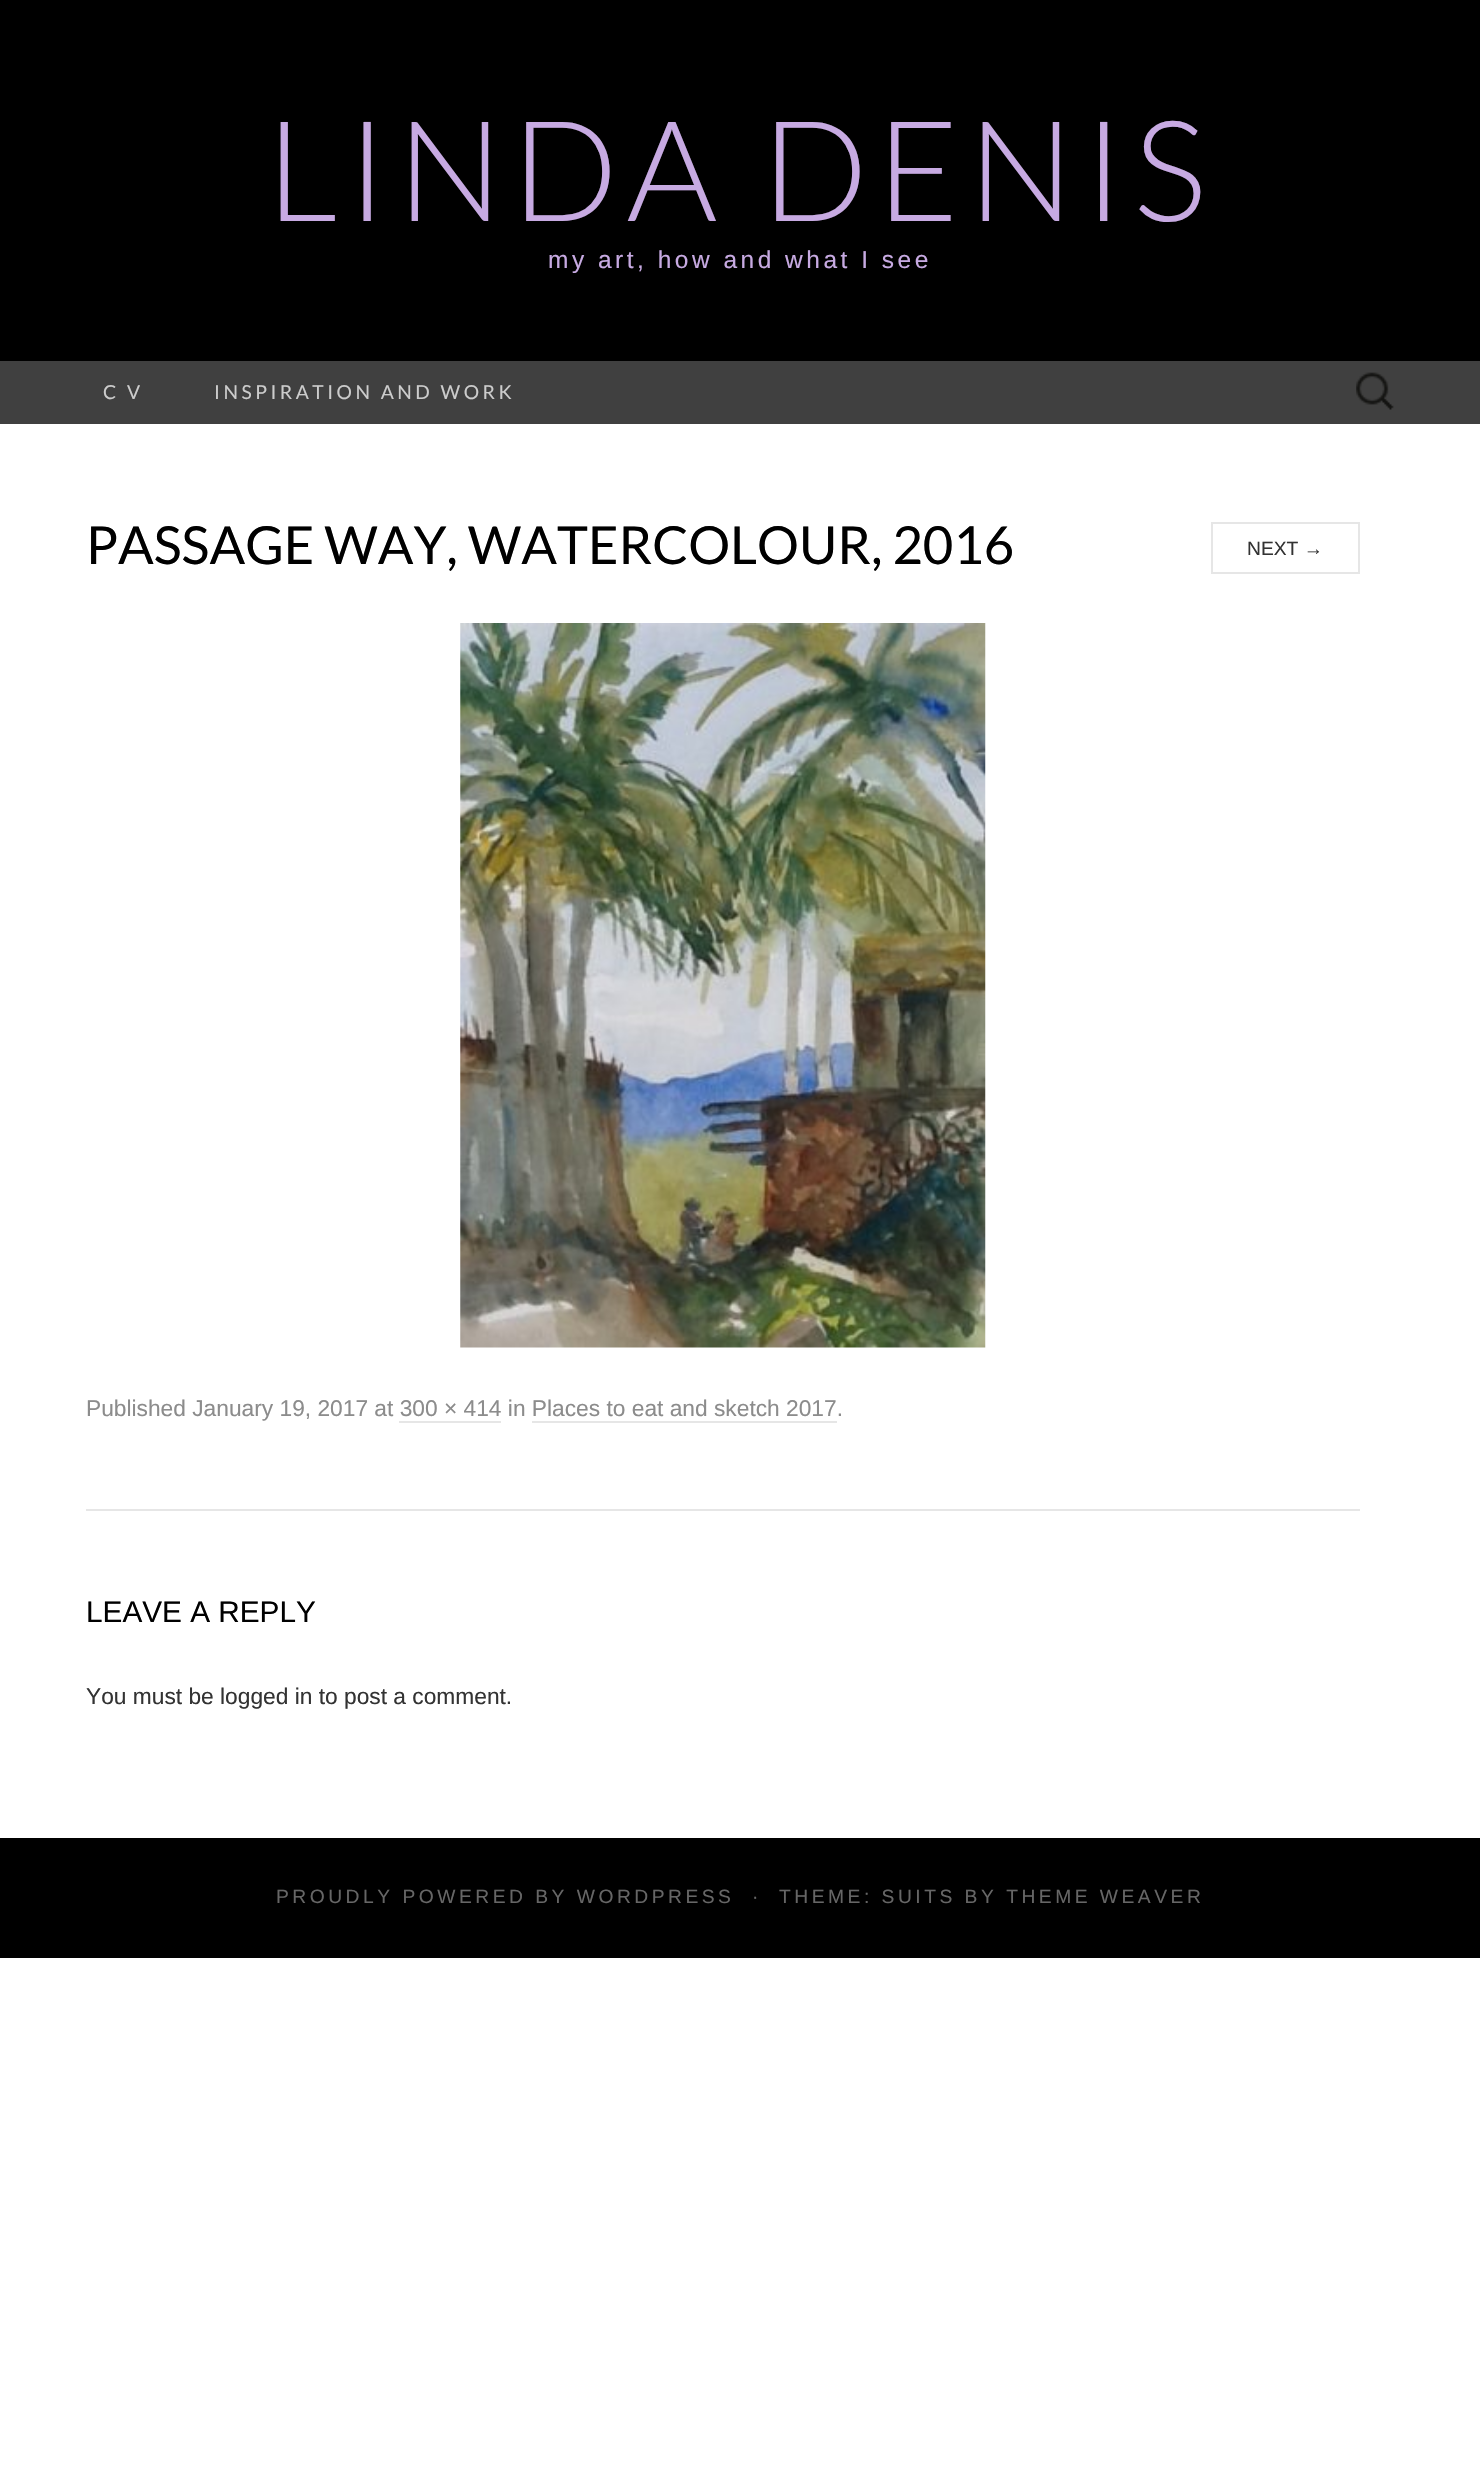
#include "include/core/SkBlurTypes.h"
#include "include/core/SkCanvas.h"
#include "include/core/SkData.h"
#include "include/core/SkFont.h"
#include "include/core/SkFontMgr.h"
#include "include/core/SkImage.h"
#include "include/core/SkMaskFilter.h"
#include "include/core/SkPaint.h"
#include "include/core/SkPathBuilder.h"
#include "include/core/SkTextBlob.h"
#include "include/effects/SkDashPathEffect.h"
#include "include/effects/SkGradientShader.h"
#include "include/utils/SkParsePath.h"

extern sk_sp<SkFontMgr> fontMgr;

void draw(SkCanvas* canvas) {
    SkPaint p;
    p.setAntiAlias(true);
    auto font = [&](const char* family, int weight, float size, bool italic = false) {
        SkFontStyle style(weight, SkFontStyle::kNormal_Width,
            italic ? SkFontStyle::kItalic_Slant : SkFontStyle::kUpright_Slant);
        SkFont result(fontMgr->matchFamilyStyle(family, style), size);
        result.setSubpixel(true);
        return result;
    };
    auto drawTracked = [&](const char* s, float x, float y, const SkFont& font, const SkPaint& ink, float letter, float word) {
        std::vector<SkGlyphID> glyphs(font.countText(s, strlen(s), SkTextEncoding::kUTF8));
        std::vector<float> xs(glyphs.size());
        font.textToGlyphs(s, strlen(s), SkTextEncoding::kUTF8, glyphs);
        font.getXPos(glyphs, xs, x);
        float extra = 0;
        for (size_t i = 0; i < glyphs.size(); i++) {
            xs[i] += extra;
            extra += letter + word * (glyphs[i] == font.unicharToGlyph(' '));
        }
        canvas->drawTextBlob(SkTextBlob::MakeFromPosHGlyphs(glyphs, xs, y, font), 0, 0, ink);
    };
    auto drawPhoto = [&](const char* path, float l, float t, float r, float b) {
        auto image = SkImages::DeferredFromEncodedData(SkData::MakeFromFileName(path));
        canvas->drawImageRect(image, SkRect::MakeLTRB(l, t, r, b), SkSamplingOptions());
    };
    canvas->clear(0xFFFFFFFF);
    p.setColor(0xFF000000);
    canvas->drawRect(SkRect::MakeLTRB(0, 0, 1480, 361), p);
    auto font1 = font("Lato", 300, 140);
    p.setColor(0xFFC7AAE2);
    drawTracked("LINDA DENIS", 266, 221, font1, p, 8.75f, 0);
    auto font2 = font("Liberation Sans", 400, 24.5f);
    drawTracked("my art, how and what I see", 548, 268, font2, p, 3.5f, 0);
    p.setColor(0xFF404040);
    canvas->drawRect(SkRect::MakeLTRB(0, 361, 1480, 424), p);
    auto font3 = font("Lato", 400, 19.25f);
    p.setColor(0xFFCCCCCC);
    drawTracked("C V", 103, 399, font3, p, 3.5f, 0);
    drawTracked("INSPIRATION AND WORK", 214, 399, font3, p, 3.5f, 0);
    drawPhoto("media/1.png", 1356, 372, 1394, 410);
    p.setColor(0xFFE6E6E6);
    canvas->drawRect(SkRect::MakeLTRB(86, 1509, 1360, 1511), p);
    auto font4 = font("Lato", 400, 52.5f);
    p.setColor(0xFF000000);
    canvas->drawString("PASSAGE WAY, WATERCOLOUR, 2016", 86, 564, font4, p);
    p.setStyle(SkPaint::kStroke_Style);
    p.setStrokeWidth(2);
    p.setColor(0xFFE6E6E6);
    canvas->drawRect(SkRect::MakeLTRB(1212, 523, 1359, 573), p);
    auto font5 = font("Liberation Sans", 400, 19.25f);
    p.setStyle(SkPaint::kFill_Style);
    p.setColor(0xFF333333);
    canvas->drawString("NEXT →", 1247, 555, font5, p);
    drawPhoto("media/2.png", 460, 623, 986, 1348);
    auto font6 = font("Liberation Sans", 400, 22.75f);
    p.setColor(0xFF8C8C8C);
    canvas->drawString("Published January 19, 2017 at 300 × 414 in Places to eat and sketch 2017.", 86, 1416, font6, p);
    p.setColor(0xFFE6E6E6);
    canvas->drawRect(SkRect::MakeLTRB(399, 1421, 501, 1423), p);
    canvas->drawRect(SkRect::MakeLTRB(532, 1421, 837, 1423), p);
    auto font7 = font("Liberation Sans", 400, 29.75f);
    p.setColor(0xFF000000);
    canvas->drawString("LEAVE A REPLY", 86, 1622, font7, p);
    p.setColor(0xFF333333);
    canvas->drawString("You must be logged in to post a comment.", 86, 1704, font6, p);
    p.setColor(0xFF000000);
    canvas->drawRect(SkRect::MakeLTRB(0, 1838, 1480, 1958), p);
    p.setColor(0xFF666666);
    {
        const struct { const char* s; float x, y; } items[] = {
            {"PROUDLY POWERED BY WORDPRESS", 276, 1903},
            {"·", 752, 1903},
            {"THEME: SUITS BY THEME WEAVER", 779, 1903},
        };
        for (auto [s, x, y] : items) {
            drawTracked(s, x, y, font5, p, 3.5f, 0);
        }
    }
}
